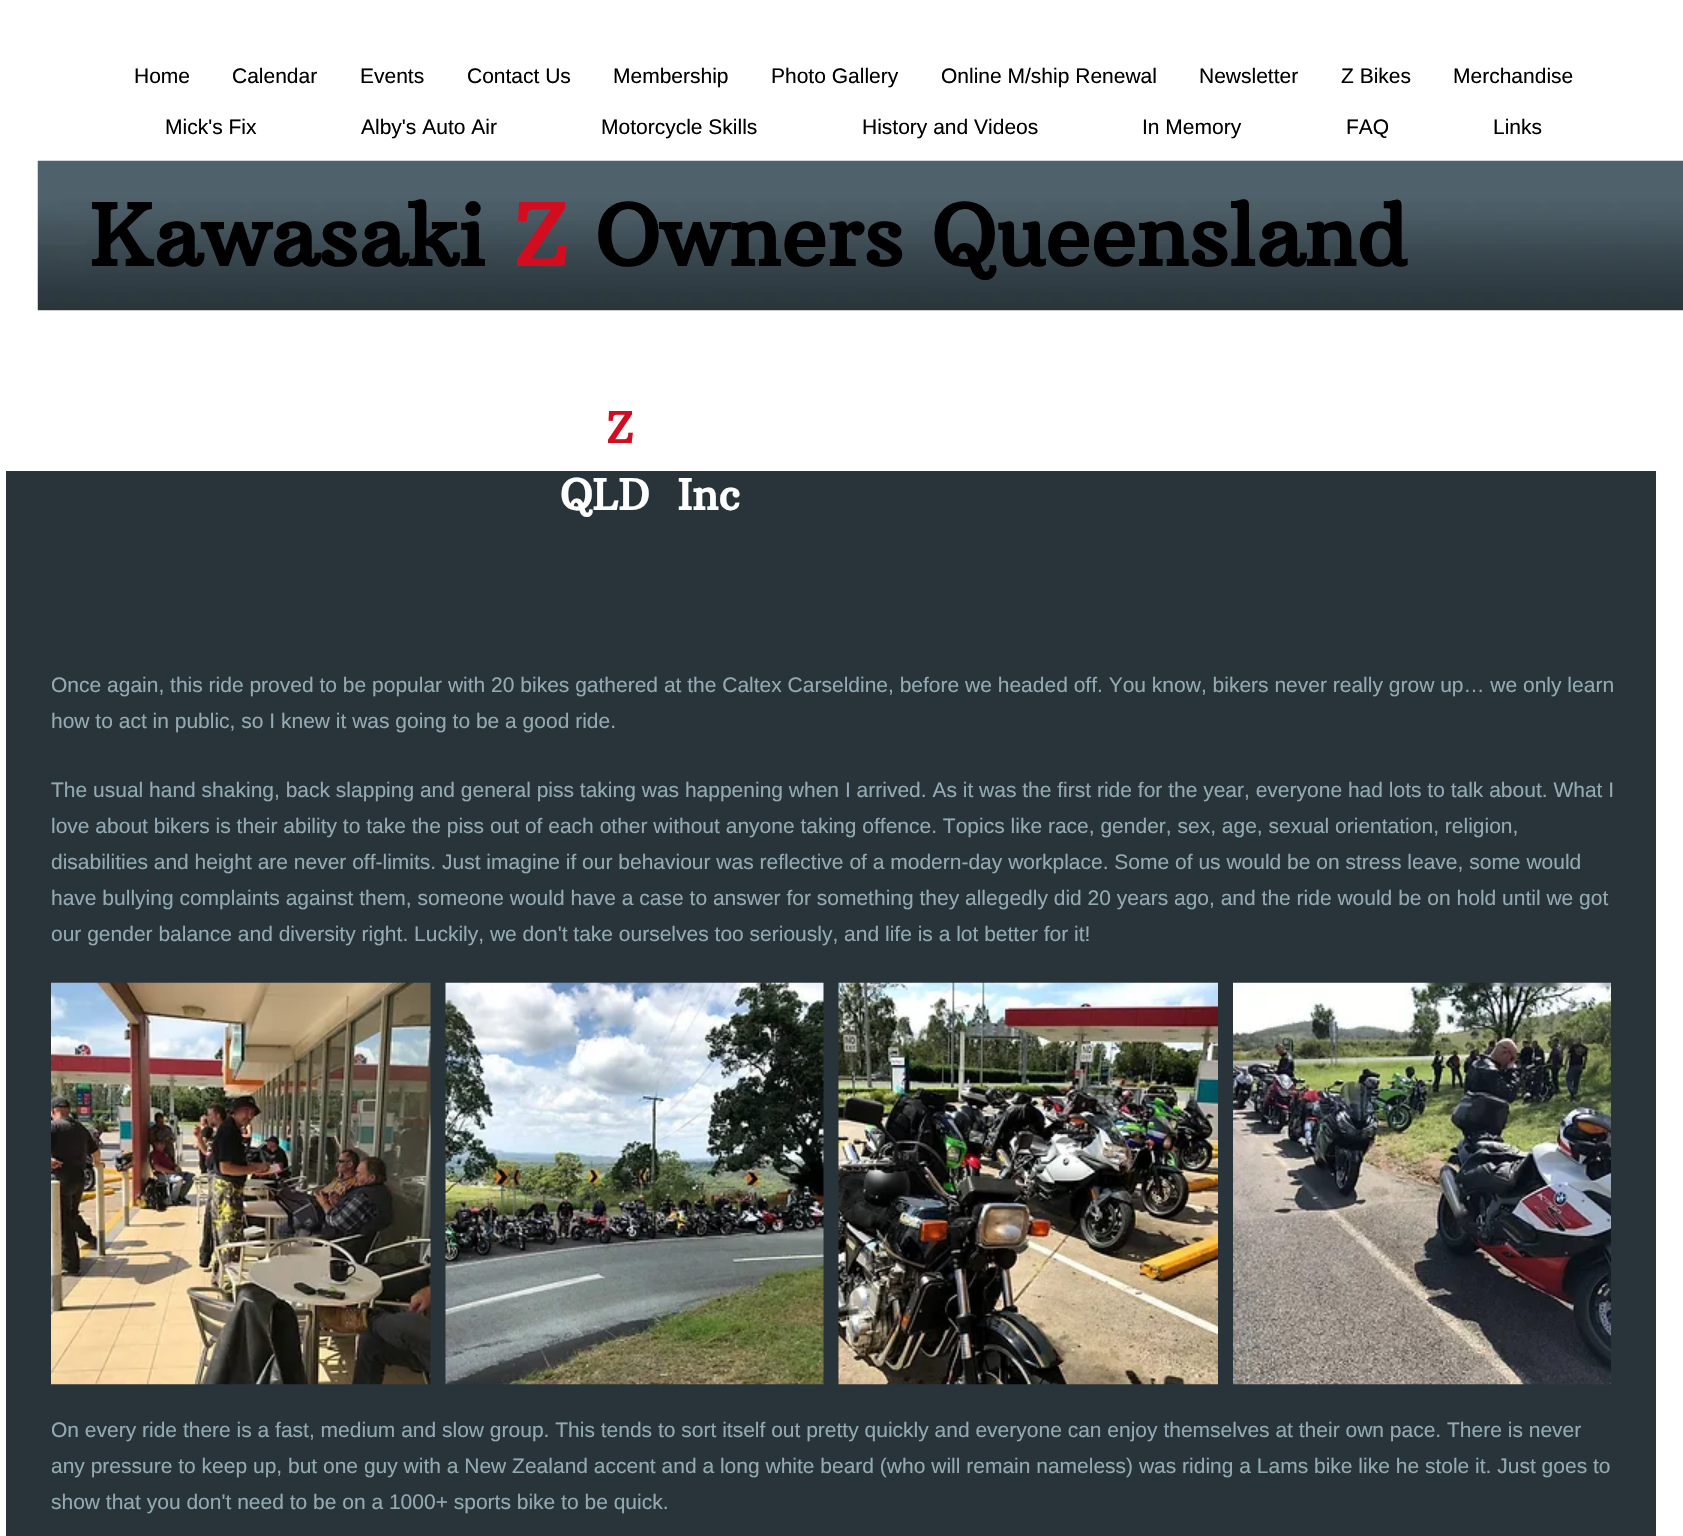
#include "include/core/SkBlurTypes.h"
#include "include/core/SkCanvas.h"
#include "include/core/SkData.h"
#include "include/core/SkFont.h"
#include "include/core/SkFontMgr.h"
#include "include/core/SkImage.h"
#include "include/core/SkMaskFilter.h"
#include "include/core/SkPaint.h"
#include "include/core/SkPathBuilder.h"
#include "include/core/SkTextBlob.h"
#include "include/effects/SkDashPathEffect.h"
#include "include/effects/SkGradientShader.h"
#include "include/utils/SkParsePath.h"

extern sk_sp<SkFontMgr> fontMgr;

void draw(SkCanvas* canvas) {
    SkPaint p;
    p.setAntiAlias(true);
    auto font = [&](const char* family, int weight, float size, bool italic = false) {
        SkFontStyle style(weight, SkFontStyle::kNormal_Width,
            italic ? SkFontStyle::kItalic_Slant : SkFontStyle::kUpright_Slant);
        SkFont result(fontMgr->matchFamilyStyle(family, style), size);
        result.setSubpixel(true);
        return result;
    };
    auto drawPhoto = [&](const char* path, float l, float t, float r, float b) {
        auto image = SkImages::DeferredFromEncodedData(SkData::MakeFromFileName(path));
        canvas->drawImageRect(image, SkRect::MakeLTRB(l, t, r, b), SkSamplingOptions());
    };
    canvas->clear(0xFFFFFFFF);
    auto font1 = font("Liberation Sans", 400, 21);
    p.setColor(0xFF000000);
    {
        const struct { const char* s; float x, y; } items[] = {
            {"Home", 134, 83},
            {"Calendar", 232, 83},
            {"Events", 360, 83},
            {"Contact Us", 467, 83},
            {"Membership", 613, 83},
            {"Photo Gallery", 771, 83},
            {"Online M/ship Renewal", 941, 83},
            {"Newsletter", 1199, 83},
            {"Z Bikes", 1341, 83},
            {"Merchandise", 1453, 83},
            {"Mick's Fix", 165, 134},
            {"Alby's Auto Air", 361, 134},
            {"Motorcycle Skills", 601, 134},
            {"History and Videos", 862, 134},
            {"In Memory", 1142, 134},
            {"FAQ", 1346, 134},
            {"Links", 1493, 134},
        };
        for (auto [s, x, y] : items) {
            canvas->drawString(s, x, y, font1, p);
        }
    }
    drawPhoto("media/1.png", 37, 160, 1683, 311);
    auto font2 = font("Arbutus Slab", 700, 84);
    canvas->drawString("Kawasaki", 89, 266, font2, p);
    p.setColor(0xFFD20D20);
    canvas->drawString("Z", 513, 266, font2, p);
    p.setColor(0xFF000000);
    canvas->drawString("Owners Queensland", 595, 266, font2, p);
    auto font3 = font("Arbutus Slab", 700, 42);
    p.setColor(0xFFD20D20);
    canvas->drawString("Z", 606, 443, font3, p);
    p.setColor(0xFF29343A);
    canvas->drawRect(SkRect::MakeLTRB(6, 471, 1656, 1536), p);
    p.setColor(0xFFFFFFFF);
    canvas->drawString("QLD  Inc", 560, 510, font3, p);
    p.setColor(0xFF93AAB2);
    {
        const struct { const char* s; float x, y; } items[] = {
            {"Once again, this ride proved to be popular with 20 bikes gathered at the Caltex Carseldine, before we headed off. You know, bikers never really grow up… we only learn", 51, 692},
            {"how to act in public, so I knew it was going to be a good ride.", 51, 728},
            {"The usual hand shaking, back slapping and general piss taking was happening when I arrived. As it was the first ride for the year, everyone had lots to talk about. What I", 51, 797},
            {"love about bikers is their ability to take the piss out of each other without anyone taking offence. Topics like race, gender, sex, age, sexual orientation, religion,", 51, 833},
            {"disabilities and height are never off-limits. Just imagine if our behaviour was reflective of a modern-day workplace. Some of us would be on stress leave, some would", 51, 869},
            {"have bullying complaints against them, someone would have a case to answer for something they allegedly did 20 years ago, and the ride would be on hold until we got", 51, 905},
            {"our gender balance and diversity right. Luckily, we don't take ourselves too seriously, and life is a lot better for it!", 51, 941},
        };
        for (auto [s, x, y] : items) {
            canvas->drawString(s, x, y, font1, p);
        }
    }
    drawPhoto("media/2.png", 51, 982, 431, 1385);
    drawPhoto("media/3.png", 445, 982, 824, 1385);
    drawPhoto("media/4.png", 838, 982, 1218, 1385);
    drawPhoto("media/5.png", 1233, 982, 1611, 1385);
    {
        const struct { const char* s; float x, y; } items[] = {
            {"On every ride there is a fast, medium and slow group. This tends to sort itself out pretty quickly and everyone can enjoy themselves at their own pace. There is never", 51, 1437},
            {"any pressure to keep up, but one guy with a New Zealand accent and a long white beard (who will remain nameless) was riding a Lams bike like he stole it. Just goes to", 51, 1473},
            {"show that you don't need to be on a 1000+ sports bike to be quick.", 51, 1509},
        };
        for (auto [s, x, y] : items) {
            canvas->drawString(s, x, y, font1, p);
        }
    }
}
